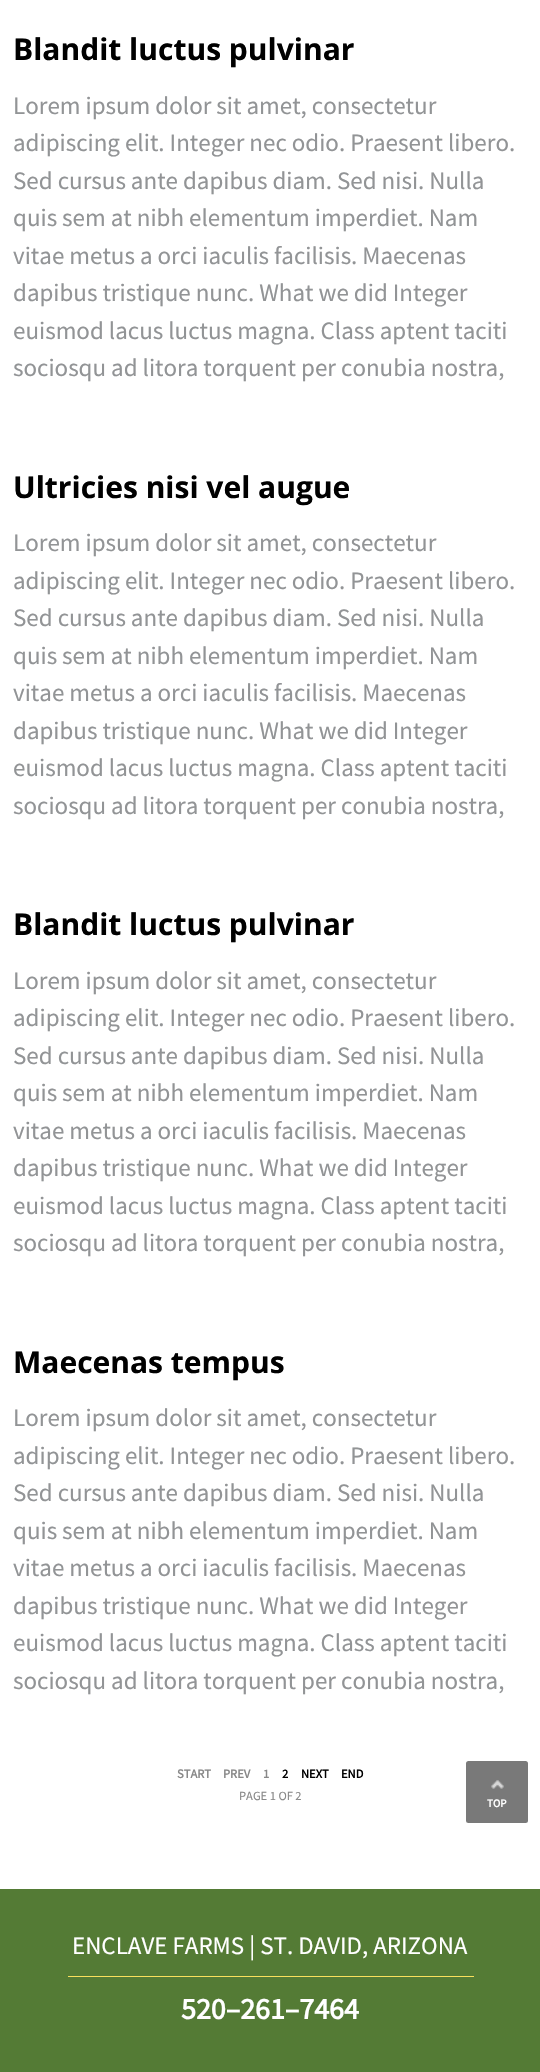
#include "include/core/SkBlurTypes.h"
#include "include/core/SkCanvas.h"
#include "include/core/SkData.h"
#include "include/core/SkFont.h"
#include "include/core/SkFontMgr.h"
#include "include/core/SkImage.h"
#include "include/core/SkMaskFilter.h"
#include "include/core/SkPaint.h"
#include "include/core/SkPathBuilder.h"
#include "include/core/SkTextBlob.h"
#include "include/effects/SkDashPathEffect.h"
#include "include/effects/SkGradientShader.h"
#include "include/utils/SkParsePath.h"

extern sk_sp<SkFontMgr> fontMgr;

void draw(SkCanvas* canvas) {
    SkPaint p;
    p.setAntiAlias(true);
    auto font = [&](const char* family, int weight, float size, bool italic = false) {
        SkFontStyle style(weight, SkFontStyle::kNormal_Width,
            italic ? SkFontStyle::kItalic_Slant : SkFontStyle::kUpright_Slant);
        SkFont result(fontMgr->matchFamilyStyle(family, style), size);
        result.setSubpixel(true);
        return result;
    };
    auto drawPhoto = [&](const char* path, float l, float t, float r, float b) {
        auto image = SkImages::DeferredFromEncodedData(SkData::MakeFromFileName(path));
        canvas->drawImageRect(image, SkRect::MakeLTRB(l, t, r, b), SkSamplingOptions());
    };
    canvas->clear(0xFFFFFFFF);
    auto font1 = font("Open Sans", 700, 30);
    p.setColor(0xFF000000);
    canvas->drawString("Blandit luctus pulvinar", 13, 60, font1, p);
    auto font2 = font("Source Sans Pro", 400, 25);
    p.setColor(0xFF929496);
    {
        const struct { const char* s; float x, y; } items[] = {
            {"Lorem ipsum dolor sit amet, consectetur", 13, 114},
            {"adipiscing elit. Integer nec odio. Praesent libero.", 13, 151},
            {"Sed cursus ante dapibus diam. Sed nisi. Nulla", 13, 189},
            {"quis sem at nibh elementum imperdiet. Nam", 13, 226},
            {"vitae metus a orci iaculis facilisis. Maecenas", 13, 264},
            {"dapibus tristique nunc. What we did Integer", 13, 301},
            {"euismod lacus luctus magna. Class aptent taciti", 13, 339},
            {"sociosqu ad litora torquent per conubia nostra,", 13, 376},
        };
        for (auto [s, x, y] : items) {
            canvas->drawString(s, x, y, font2, p);
        }
    }
    p.setColor(0xFF000000);
    canvas->drawString("Ultricies nisi vel augue", 13, 498, font1, p);
    p.setColor(0xFF929496);
    {
        const struct { const char* s; float x, y; } items[] = {
            {"Lorem ipsum dolor sit amet, consectetur", 13, 551},
            {"adipiscing elit. Integer nec odio. Praesent libero.", 13, 589},
            {"Sed cursus ante dapibus diam. Sed nisi. Nulla", 13, 626},
            {"quis sem at nibh elementum imperdiet. Nam", 13, 664},
            {"vitae metus a orci iaculis facilisis. Maecenas", 13, 701},
            {"dapibus tristique nunc. What we did Integer", 13, 739},
            {"euismod lacus luctus magna. Class aptent taciti", 13, 776},
            {"sociosqu ad litora torquent per conubia nostra,", 13, 814},
        };
        for (auto [s, x, y] : items) {
            canvas->drawString(s, x, y, font2, p);
        }
    }
    p.setColor(0xFF000000);
    canvas->drawString("Blandit luctus pulvinar", 13, 935, font1, p);
    p.setColor(0xFF929496);
    {
        const struct { const char* s; float x, y; } items[] = {
            {"Lorem ipsum dolor sit amet, consectetur", 13, 989},
            {"adipiscing elit. Integer nec odio. Praesent libero.", 13, 1026},
            {"Sed cursus ante dapibus diam. Sed nisi. Nulla", 13, 1064},
            {"quis sem at nibh elementum imperdiet. Nam", 13, 1101},
            {"vitae metus a orci iaculis facilisis. Maecenas", 13, 1139},
            {"dapibus tristique nunc. What we did Integer", 13, 1176},
            {"euismod lacus luctus magna. Class aptent taciti", 13, 1214},
            {"sociosqu ad litora torquent per conubia nostra,", 13, 1251},
        };
        for (auto [s, x, y] : items) {
            canvas->drawString(s, x, y, font2, p);
        }
    }
    p.setColor(0xFF000000);
    canvas->drawString("Maecenas tempus", 13, 1373, font1, p);
    p.setColor(0xFF929496);
    {
        const struct { const char* s; float x, y; } items[] = {
            {"Lorem ipsum dolor sit amet, consectetur", 13, 1426},
            {"adipiscing elit. Integer nec odio. Praesent libero.", 13, 1464},
            {"Sed cursus ante dapibus diam. Sed nisi. Nulla", 13, 1501},
            {"quis sem at nibh elementum imperdiet. Nam", 13, 1539},
            {"vitae metus a orci iaculis facilisis. Maecenas", 13, 1576},
            {"dapibus tristique nunc. What we did Integer", 13, 1614},
            {"euismod lacus luctus magna. Class aptent taciti", 13, 1651},
            {"sociosqu ad litora torquent per conubia nostra,", 13, 1689},
        };
        for (auto [s, x, y] : items) {
            canvas->drawString(s, x, y, font2, p);
        }
    }
    auto font3 = font("Source Sans Pro", 700, 12.5f);
    p.setColor(0xFF888888);
    {
        const struct { const char* s; float x, y; } items[] = {
            {"START", 177, 1778},
            {"PREV", 223, 1778},
            {"1", 263, 1778},
        };
        for (auto [s, x, y] : items) {
            canvas->drawString(s, x, y, font3, p);
        }
    }
    p.setColor(0xFF000000);
    {
        const struct { const char* s; float x, y; } items[] = {
            {"2", 282, 1778},
            {"NEXT", 301, 1778},
            {"END", 341, 1778},
        };
        for (auto [s, x, y] : items) {
            canvas->drawString(s, x, y, font3, p);
        }
    }
    auto font4 = font("Source Sans Pro", 400, 12.5f);
    p.setColor(0xFF888888);
    canvas->drawString("PAGE 1 OF 2", 239, 1800, font4, p);
    p.setColor(0xFF547B35);
    canvas->drawRect(SkRect::MakeLTRB(0, 1889, 540, 2072), p);
    p.setColor(0xFFF9E05D);
    canvas->drawRect(SkRect::MakeLTRB(68, 1976, 474, 1977), p);
    p.setColor(0xFFFFFFFF);
    canvas->drawString("ENCLAVE FARMS | ST. DAVID, ARIZONA", 72, 1954, font2, p);
    auto font5 = font("Source Sans Pro", 700, 30);
    canvas->drawString("520–261–7464", 181, 2019, font5, p);
    p.setColor(0xFF797979);
    canvas->drawRoundRect(SkRect::MakeLTRB(466, 1761, 528, 1823), 2.5f, 2.5f, p);
    drawPhoto("media/1.png", 491, 1780, 504, 1789);
    auto font6 = font("Source Sans Pro", 700, 11);
    p.setColor(0xFFFFFFFF);
    canvas->drawString("TOP", 487, 1807, font6, p);
}
